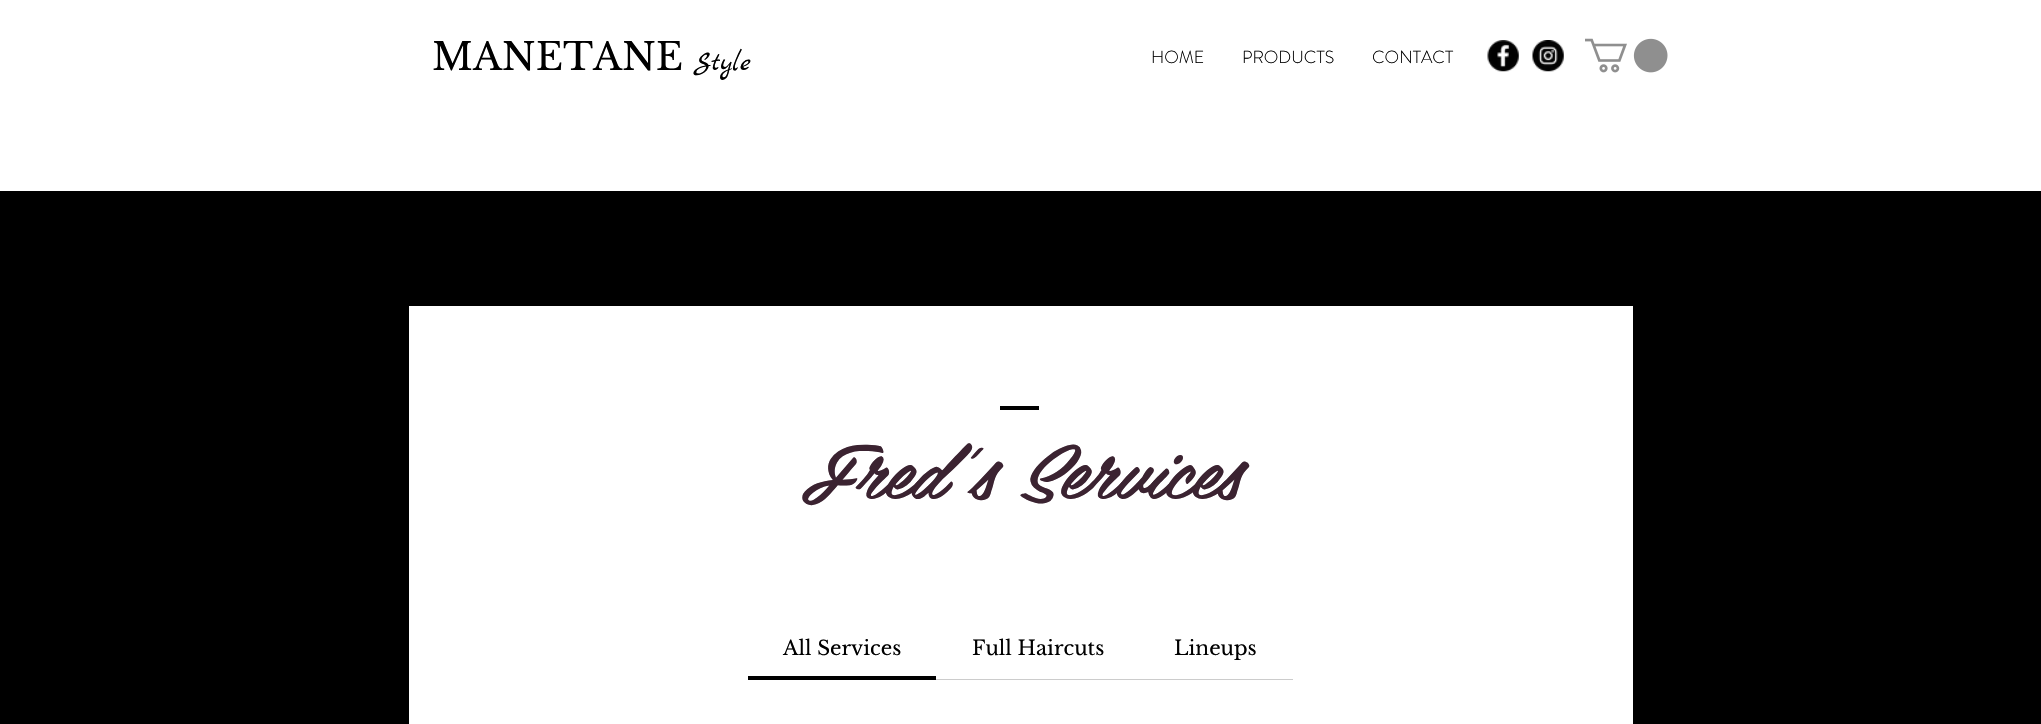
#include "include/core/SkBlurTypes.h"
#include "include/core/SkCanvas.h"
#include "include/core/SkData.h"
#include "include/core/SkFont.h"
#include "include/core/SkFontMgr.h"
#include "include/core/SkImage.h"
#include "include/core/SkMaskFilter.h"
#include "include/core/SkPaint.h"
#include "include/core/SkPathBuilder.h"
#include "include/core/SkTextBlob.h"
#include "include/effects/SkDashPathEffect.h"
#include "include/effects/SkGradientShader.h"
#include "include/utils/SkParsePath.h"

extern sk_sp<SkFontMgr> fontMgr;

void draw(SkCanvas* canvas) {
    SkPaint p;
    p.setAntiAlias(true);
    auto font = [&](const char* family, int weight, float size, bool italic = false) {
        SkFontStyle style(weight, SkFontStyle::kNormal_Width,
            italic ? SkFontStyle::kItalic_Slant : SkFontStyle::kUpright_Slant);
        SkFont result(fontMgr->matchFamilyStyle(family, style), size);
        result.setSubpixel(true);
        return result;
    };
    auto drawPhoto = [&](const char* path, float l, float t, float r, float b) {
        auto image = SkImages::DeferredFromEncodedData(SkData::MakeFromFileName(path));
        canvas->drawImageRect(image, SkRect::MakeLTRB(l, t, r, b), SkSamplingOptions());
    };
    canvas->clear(0xFFFFFFFF);
    auto font1 = font("Libre Baskerville", 400, 37.5f);
    p.setColor(0xFF000000);
    canvas->drawString("MANETANE", 432, 70, font1, p);
    auto font2 = font("Marck Script", 400, 27.5f);
    canvas->drawString("Style", 694, 70, font2, p);
    auto font3 = font("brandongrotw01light", 300, 17.5f);
    {
        const struct { const char* s; float x, y; } items[] = {
            {"HOME", 1151, 63},
            {"PRODUCTS", 1242, 63},
            {"CONTACT", 1372, 63},
        };
        for (auto [s, x, y] : items) {
            canvas->drawString(s, x, y, font3, p);
        }
    }
    drawPhoto("media/1.png", 1487, 40, 1519, 72);
    drawPhoto("media/2.png", 1532, 40, 1564, 72);
    drawPhoto("media/3.png", 1585, 38, 1668, 73);
    {
        const struct { float l, t, r, b; SkColor color; } items[] = {
            {0, 191, 2041, 724, 0xFF000000},
            {409, 306, 1633, 724, 0xFFFFFFFF},
            {1000, 406, 1039, 410, 0xFF000000},
        };
        for (auto [l, t, r, b, color] : items) {
            p.setColor(color);
            canvas->drawRect(SkRect::MakeLTRB(l, t, r, b), p);
        }
    }
    auto font4 = font("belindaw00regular", 400, 75, true);
    p.setColor(0xFF3B2331);
    canvas->drawString("Fred's Services", 800, 499, font4, p);
    p.setColor(0xFF000000);
    canvas->drawRect(SkRect::MakeLTRB(748, 676, 936, 680), p);
    auto font5 = font("Libre Baskerville", 400, 20);
    canvas->drawString("All Services", 783, 655, font5, p);
    p.setColor(0xFFCCCCCC);
    canvas->drawRect(SkRect::MakeLTRB(936, 679, 1293, 680), p);
    p.setColor(0xFF000000);
    canvas->drawString("Full Haircuts", 972, 655, font5, p);
    canvas->drawString("Lineups", 1174, 655, font5, p);
}
